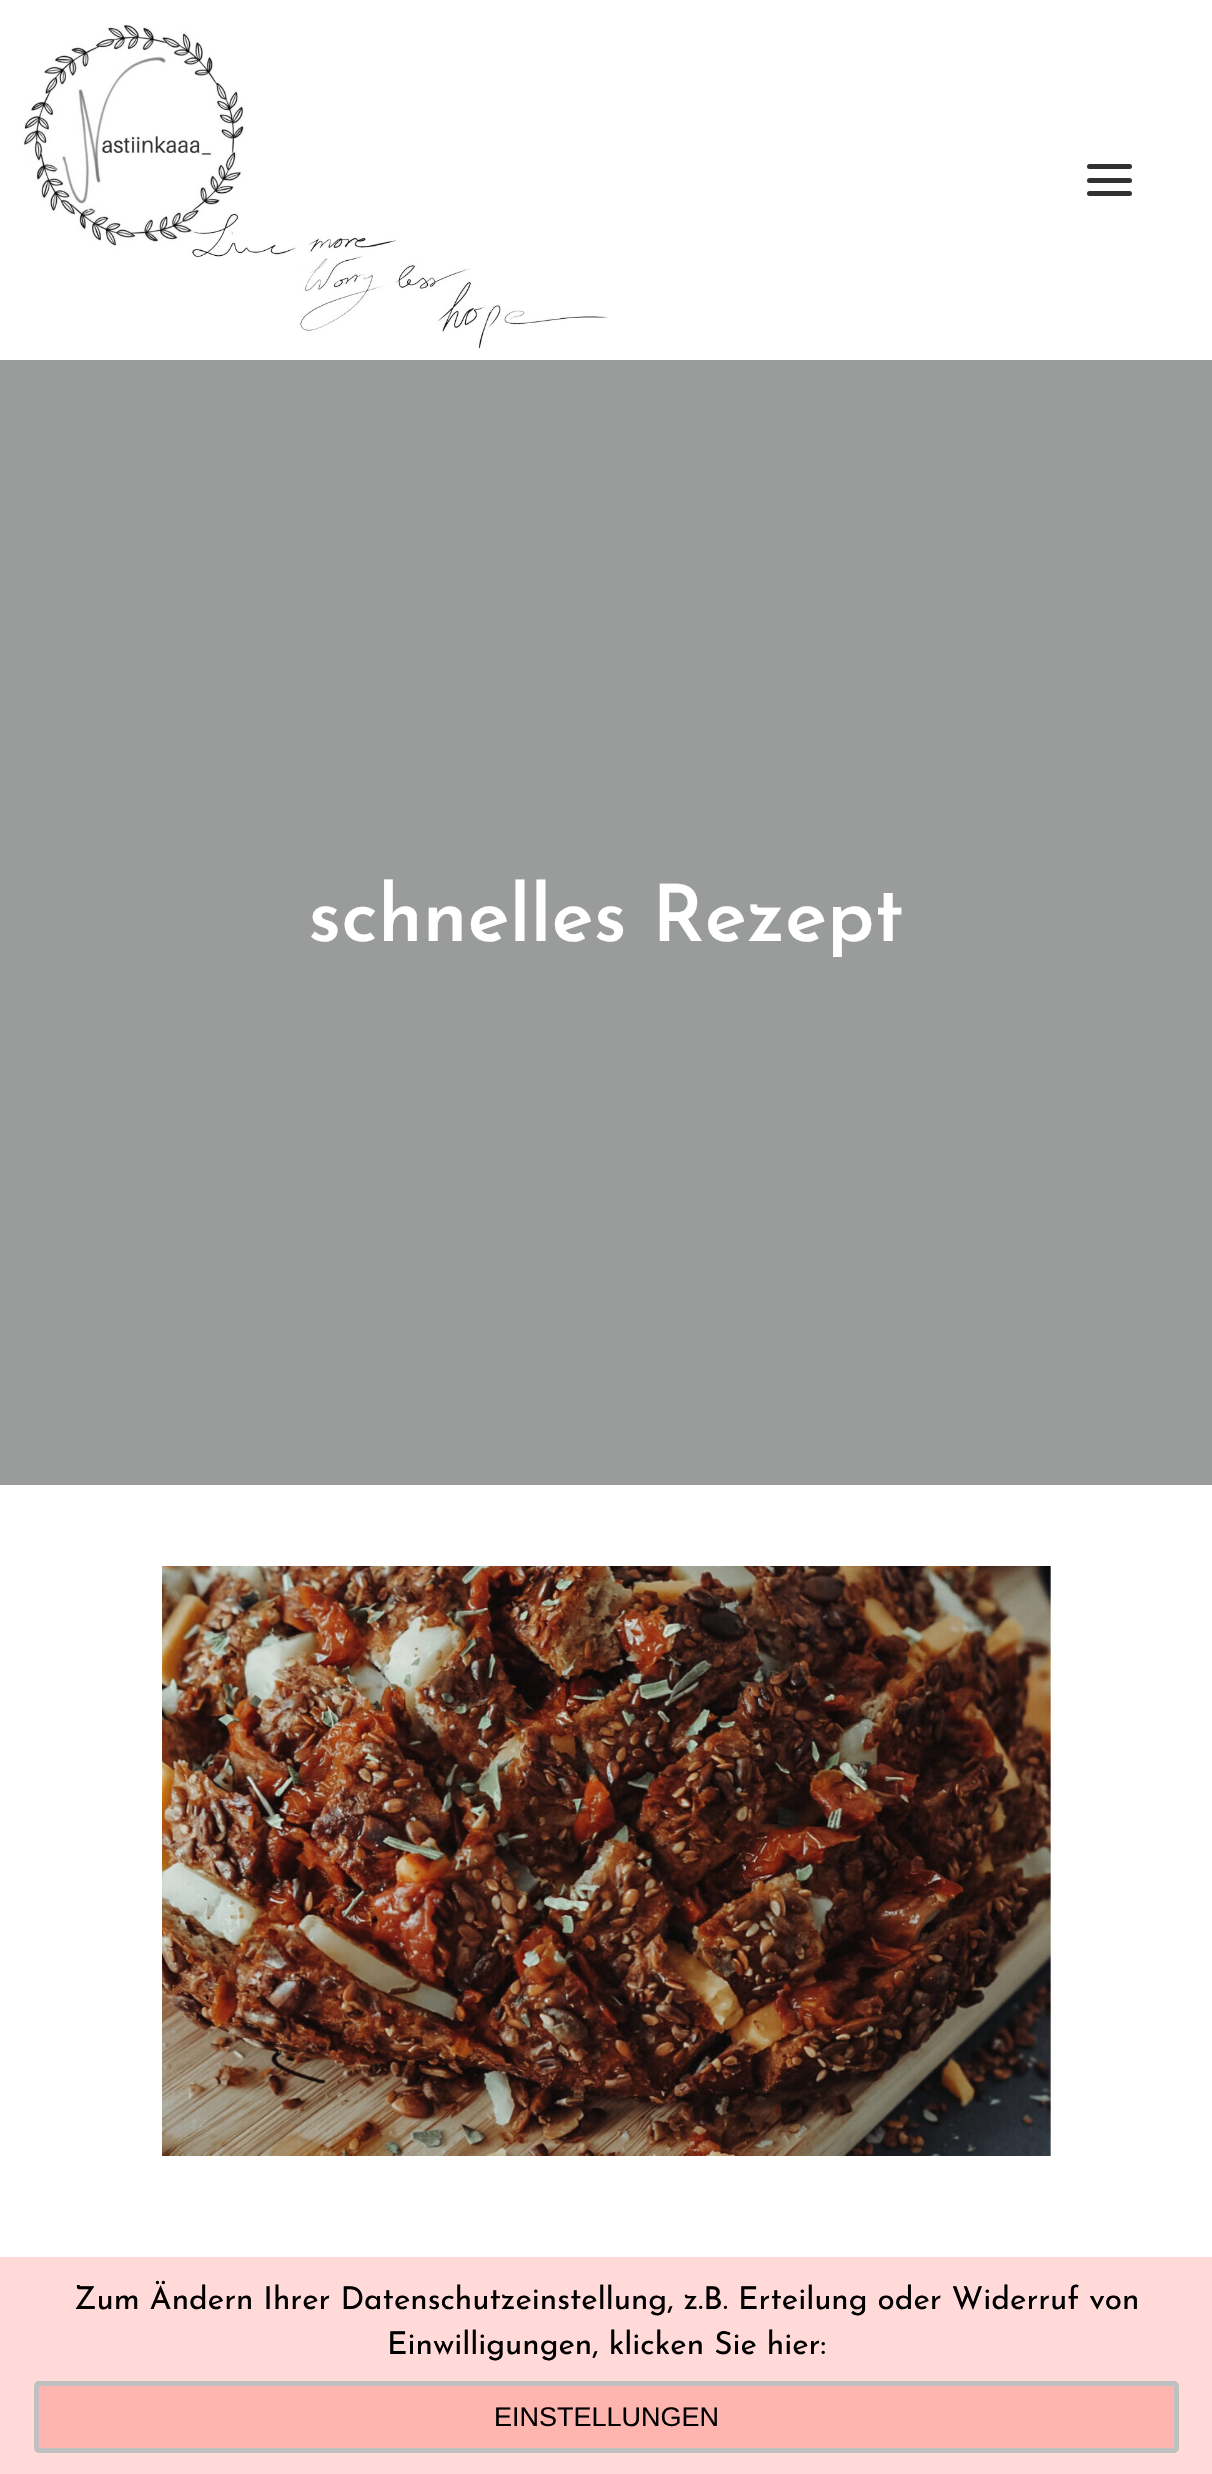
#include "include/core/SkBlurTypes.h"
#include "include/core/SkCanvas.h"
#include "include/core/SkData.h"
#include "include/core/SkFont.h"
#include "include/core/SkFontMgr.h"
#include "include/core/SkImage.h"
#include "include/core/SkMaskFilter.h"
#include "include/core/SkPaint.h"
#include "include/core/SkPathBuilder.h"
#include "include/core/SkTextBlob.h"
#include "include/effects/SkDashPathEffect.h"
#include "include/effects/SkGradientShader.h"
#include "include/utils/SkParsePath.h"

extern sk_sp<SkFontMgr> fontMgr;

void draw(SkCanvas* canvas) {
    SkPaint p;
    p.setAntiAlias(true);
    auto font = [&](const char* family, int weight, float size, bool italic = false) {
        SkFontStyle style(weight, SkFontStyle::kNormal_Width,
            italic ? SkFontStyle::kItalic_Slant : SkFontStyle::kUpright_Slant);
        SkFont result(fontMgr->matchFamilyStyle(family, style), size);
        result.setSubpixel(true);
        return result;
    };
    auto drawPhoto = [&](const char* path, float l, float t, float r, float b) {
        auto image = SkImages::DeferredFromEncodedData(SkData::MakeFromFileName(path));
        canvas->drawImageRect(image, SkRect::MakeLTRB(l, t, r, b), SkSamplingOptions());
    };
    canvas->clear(0xFF9A9B9B);
    p.setColor(0xFFFFFFFF);
    canvas->drawRect(SkRect::MakeLTRB(0, 0, 1212, 360), p);
    drawPhoto("media/1.png", 23, 24, 608, 349);
    p.setColor(0xFF303133);
    canvas->drawRoundRect(SkRect::MakeLTRB(1087, 178, 1132, 183), 2.5f, 2.5f, p);
    canvas->drawRoundRect(SkRect::MakeLTRB(1087, 164, 1132, 169), 2.5f, 2.5f, p);
    canvas->drawRoundRect(SkRect::MakeLTRB(1087, 191, 1132, 196), 2.5f, 2.5f, p);
    auto font1 = font("Josefin Sans", 600, 78.75f);
    p.setColor(0xFFFFFFFF);
    canvas->drawString("schnelles Rezept", 308, 941, font1, p);
    canvas->drawRect(SkRect::MakeLTRB(0, 1485, 1212, 2257), p);
    drawPhoto("media/2.png", 162, 1566, 1051, 2156);
    p.setColor(0xFFFFDAD8);
    canvas->drawRect(SkRect::MakeLTRB(0, 2257, 1212, 2474), p);
    auto font2 = font("Josefin Sans", 400, 31.5f);
    p.setColor(0xFF000000);
    canvas->drawString("Zum Ändern Ihrer Datenschutzeinstellung, z.B. Erteilung oder Widerruf von", 74, 2309, font2, p);
    canvas->drawString("Einwilligungen, klicken Sie hier:", 387, 2354, font2, p);
    p.setColor(0xFFFFB5AF);
    canvas->drawRoundRect(SkRect::MakeLTRB(36.5f, 2383.5f, 1176.5f, 2450.5f), 2.5f, 2.5f, p);
    p.setStyle(SkPaint::kStroke_Style);
    p.setStrokeWidth(5);
    p.setColor(0xFFC0C0C0);
    canvas->drawRoundRect(SkRect::MakeLTRB(36.5f, 2383.5f, 1176.5f, 2450.5f), 2.5f, 2.5f, p);
    auto font3 = font("Liberation Sans", 400, 27);
    p.setStyle(SkPaint::kFill_Style);
    p.setColor(0xFF000000);
    canvas->drawString("EINSTELLUNGEN", 494, 2426, font3, p);
}
